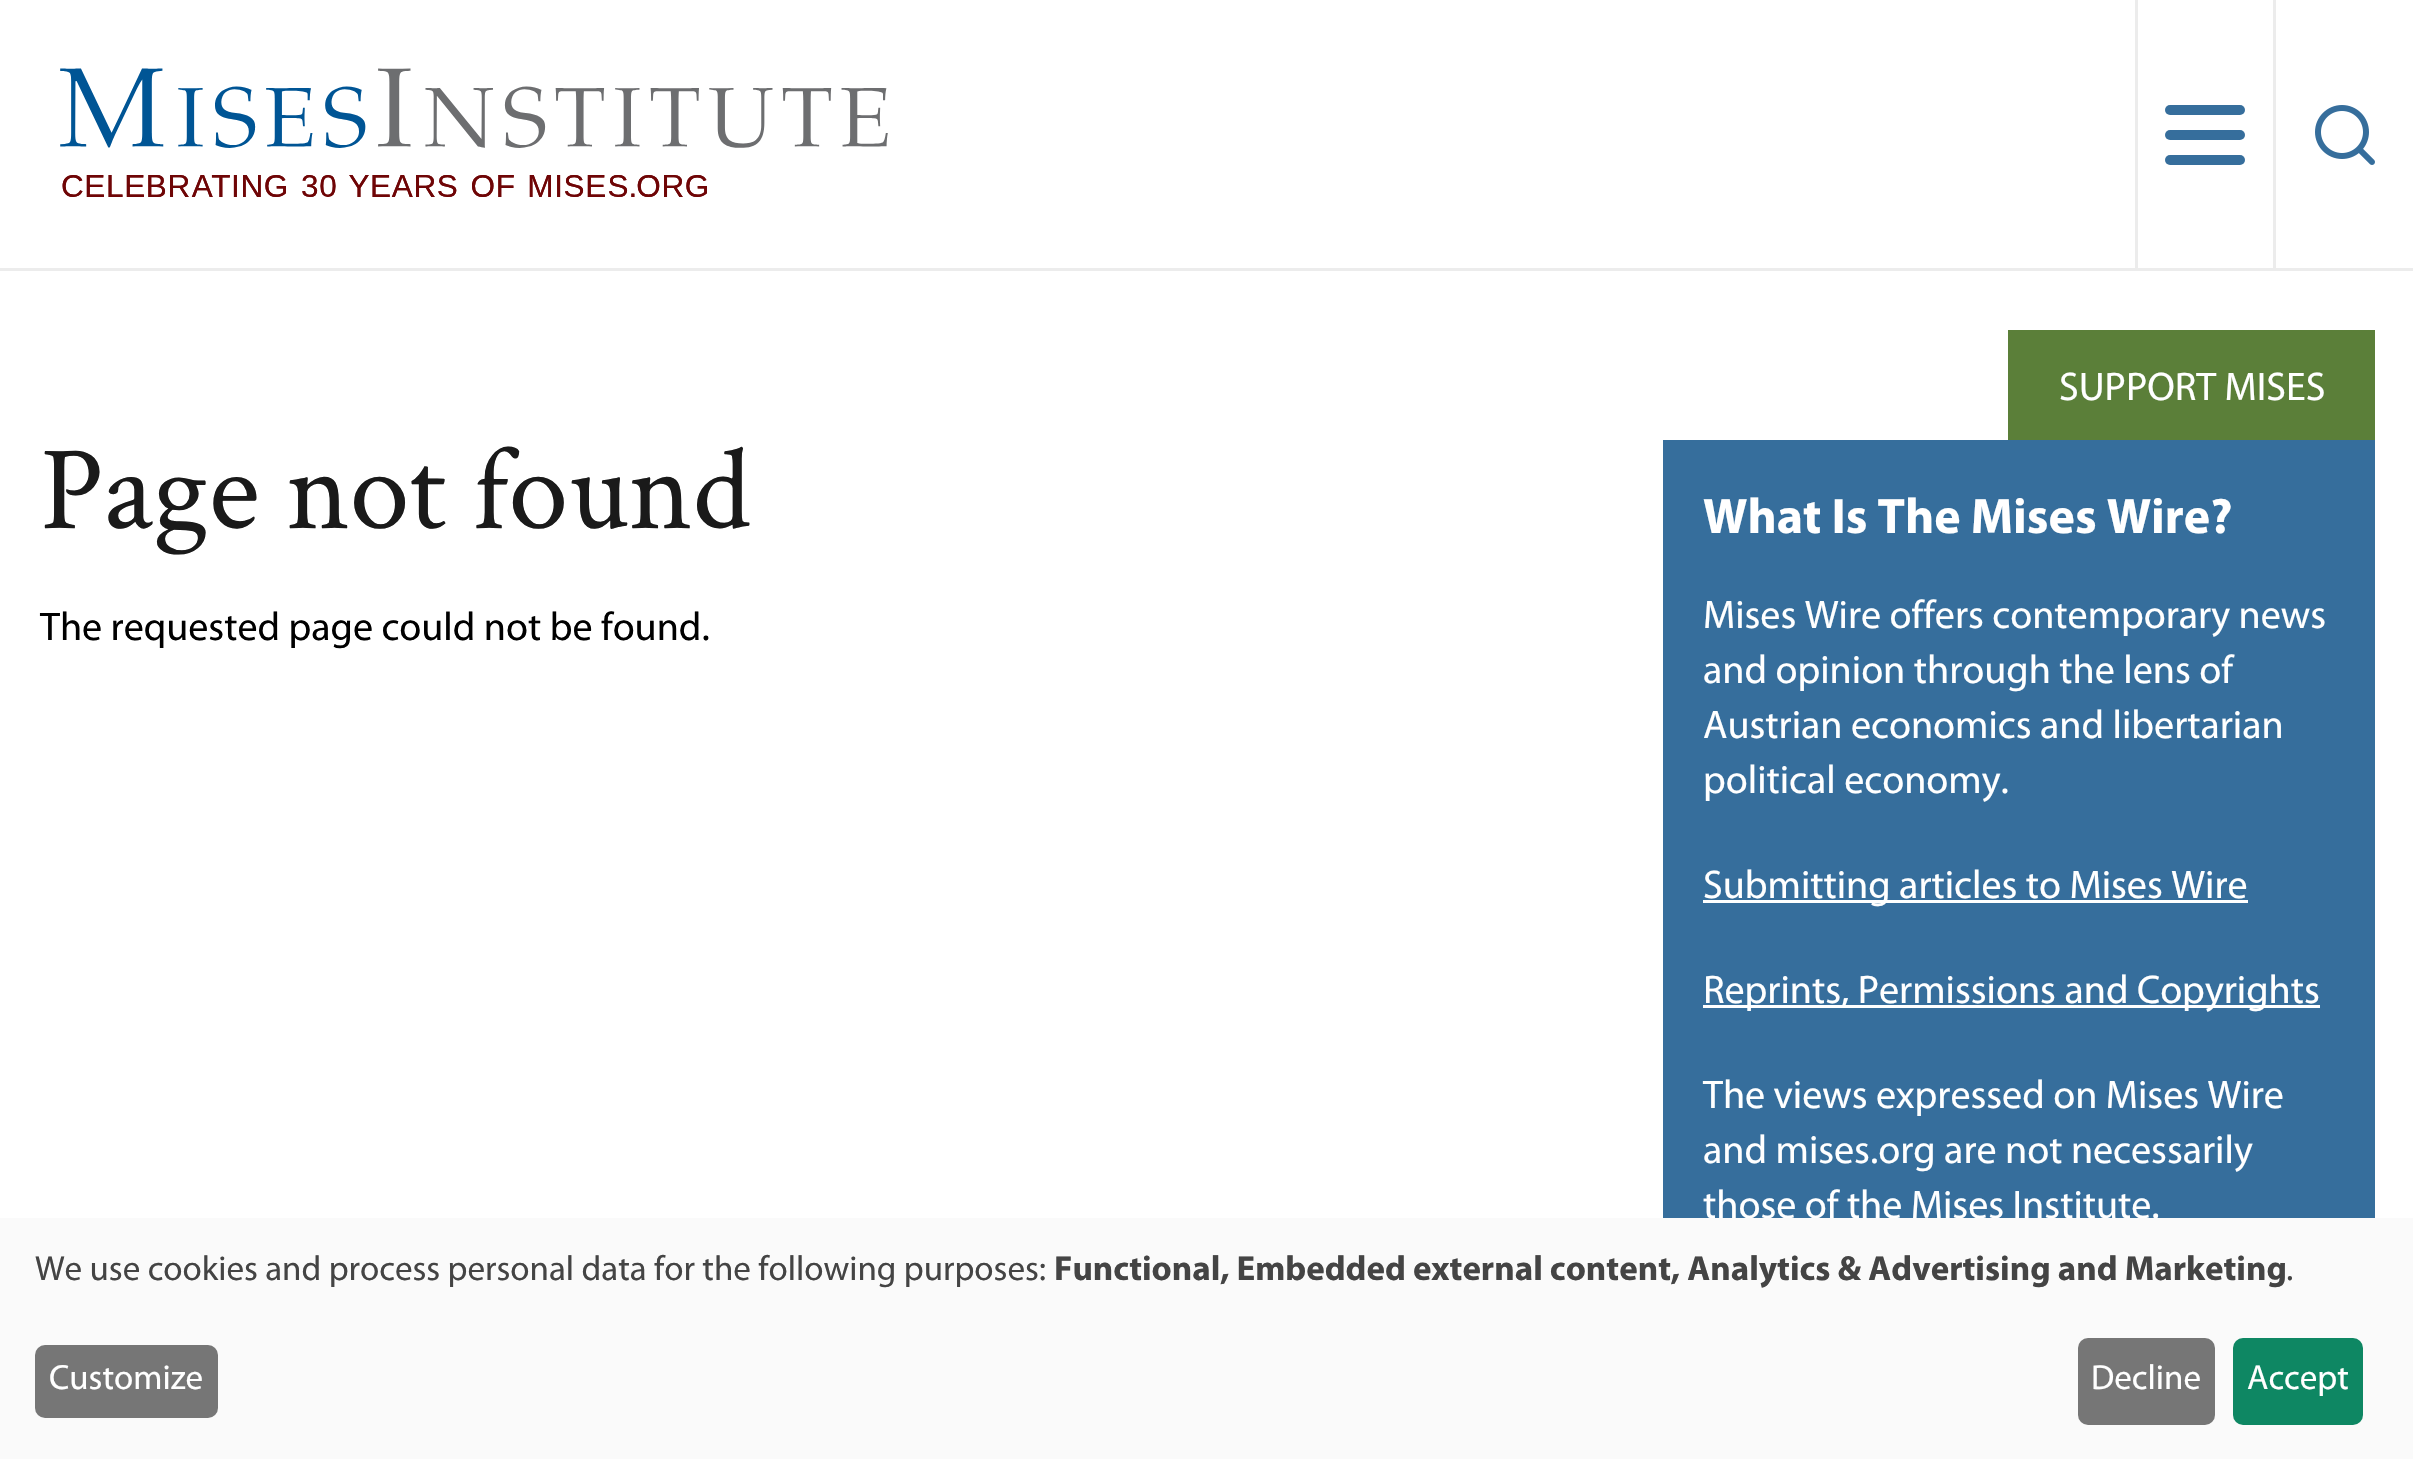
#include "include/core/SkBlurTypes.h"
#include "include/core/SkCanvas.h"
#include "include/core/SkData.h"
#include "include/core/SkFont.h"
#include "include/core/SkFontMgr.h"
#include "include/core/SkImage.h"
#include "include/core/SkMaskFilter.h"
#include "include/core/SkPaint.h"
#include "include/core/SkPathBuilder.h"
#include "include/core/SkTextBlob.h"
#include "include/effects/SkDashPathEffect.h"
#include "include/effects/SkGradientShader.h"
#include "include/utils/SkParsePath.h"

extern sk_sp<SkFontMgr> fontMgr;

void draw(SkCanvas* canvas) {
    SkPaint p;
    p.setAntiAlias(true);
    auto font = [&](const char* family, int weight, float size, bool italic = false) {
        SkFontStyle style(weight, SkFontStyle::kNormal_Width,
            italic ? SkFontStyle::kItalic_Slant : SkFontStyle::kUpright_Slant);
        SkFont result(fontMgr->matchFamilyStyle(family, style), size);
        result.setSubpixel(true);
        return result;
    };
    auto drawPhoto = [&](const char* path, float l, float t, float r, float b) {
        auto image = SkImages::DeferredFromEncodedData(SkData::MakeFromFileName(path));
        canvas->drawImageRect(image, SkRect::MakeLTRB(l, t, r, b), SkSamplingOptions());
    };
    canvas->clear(0xFFFFFFFF);
    p.setColor(0xFFECECEC);
    canvas->drawRect(SkRect::MakeLTRB(0, 268, 2413, 271), p);
    drawPhoto("media/1.png", 60, 68, 888, 197);
    canvas->drawRect(SkRect::MakeLTRB(2273, 0, 2276, 268), p);
    canvas->drawRect(SkRect::MakeLTRB(2135, 0, 2138, 268), p);
    p.setColor(0xFF366E9C);
    canvas->drawRoundRect(SkRect::MakeLTRB(2165, 105, 2245, 115), 5, 5, p);
    canvas->drawRoundRect(SkRect::MakeLTRB(2165, 130, 2245, 140), 5, 5, p);
    canvas->drawRoundRect(SkRect::MakeLTRB(2165, 155, 2245, 165), 5, 5, p);
    drawPhoto("media/2.png", 2315, 105, 2375, 165);
    p.setColor(0xFF5B7F39);
    canvas->drawRect(SkRect::MakeLTRB(2008, 330, 2375, 440), p);
    auto font1 = font("Myriad", 400, 40);
    p.setColor(0xFFFFFFFF);
    canvas->drawString("SUPPORT MISES", 2059, 400, font1, p);
    auto font2 = font("Crimson Text", 400, 120);
    p.setColor(0xFF1A1A1A);
    canvas->drawString("Page not found", 40, 528, font2, p);
    p.setColor(0xFF000000);
    canvas->drawString("The requested page could not be found.", 40, 640, font1, p);
    p.setColor(0xFF366E9C);
    canvas->drawRect(SkRect::MakeLTRB(1663, 440, 2375, 1218), p);
    auto font3 = font("Myriad", 700, 50);
    p.setColor(0xFFFFFFFF);
    canvas->drawString("What Is The Mises Wire?", 1703, 533, font3, p);
    {
        const struct { const char* s; float x, y; } items[] = {
            {"Mises Wire offers contemporary news", 1703, 628},
            {"and opinion through the lens of", 1703, 683},
            {"Austrian economics and libertarian", 1703, 738},
            {"political economy.", 1703, 793},
        };
        for (auto [s, x, y] : items) {
            canvas->drawString(s, x, y, font1, p);
        }
    }
    canvas->drawRect(SkRect::MakeLTRB(1703, 900, 2248, 903), p);
    canvas->drawString("Submitting articles to Mises Wire", 1703, 898, font1, p);
    canvas->drawRect(SkRect::MakeLTRB(1703, 1005, 2320, 1008), p);
    {
        const struct { const char* s; float x, y; } items[] = {
            {"Reprints, Permissions and Copyrights", 1703, 1003},
            {"The views expressed on Mises Wire", 1703, 1108},
            {"and mises.org are not necessarily", 1703, 1163},
            {"those of the Mises Institute.", 1703, 1218},
        };
        for (auto [s, x, y] : items) {
            canvas->drawString(s, x, y, font1, p);
        }
    }
    p.setColor(0xFFFAFAFA);
    canvas->drawRect(SkRect::MakeLTRB(0, 1218, 2413, 1459), p);
    auto font4 = font("Myriad", 400, 35);
    p.setColor(0xFF444444);
    canvas->drawString("We use cookies and process personal data for the following purposes:", 35, 1280, font4, p);
    auto font5 = font("Myriad", 700, 35);
    canvas->drawString("Functional, Embedded external content, Analytics & Advertising and Marketing", 1054, 1280, font5, p);
    canvas->drawString(".", 2286, 1280, font4, p);
    p.setColor(0xFF767676);
    canvas->drawRoundRect(SkRect::MakeLTRB(35, 1345, 218, 1418), 10, 10, p);
    p.setColor(0xFFFFFFFF);
    canvas->drawString("Customize", 49, 1389, font4, p);
    p.setColor(0xFF767676);
    canvas->drawRoundRect(SkRect::MakeLTRB(2078, 1338, 2215, 1425), 10, 10, p);
    p.setColor(0xFFFFFFFF);
    canvas->drawString("Decline", 2091, 1389, font4, p);
    p.setColor(0xFF0E8763);
    canvas->drawRoundRect(SkRect::MakeLTRB(2233, 1338, 2363, 1425), 10, 10, p);
    p.setColor(0xFFFFFFFF);
    canvas->drawString("Accept", 2247, 1389, font4, p);
}
